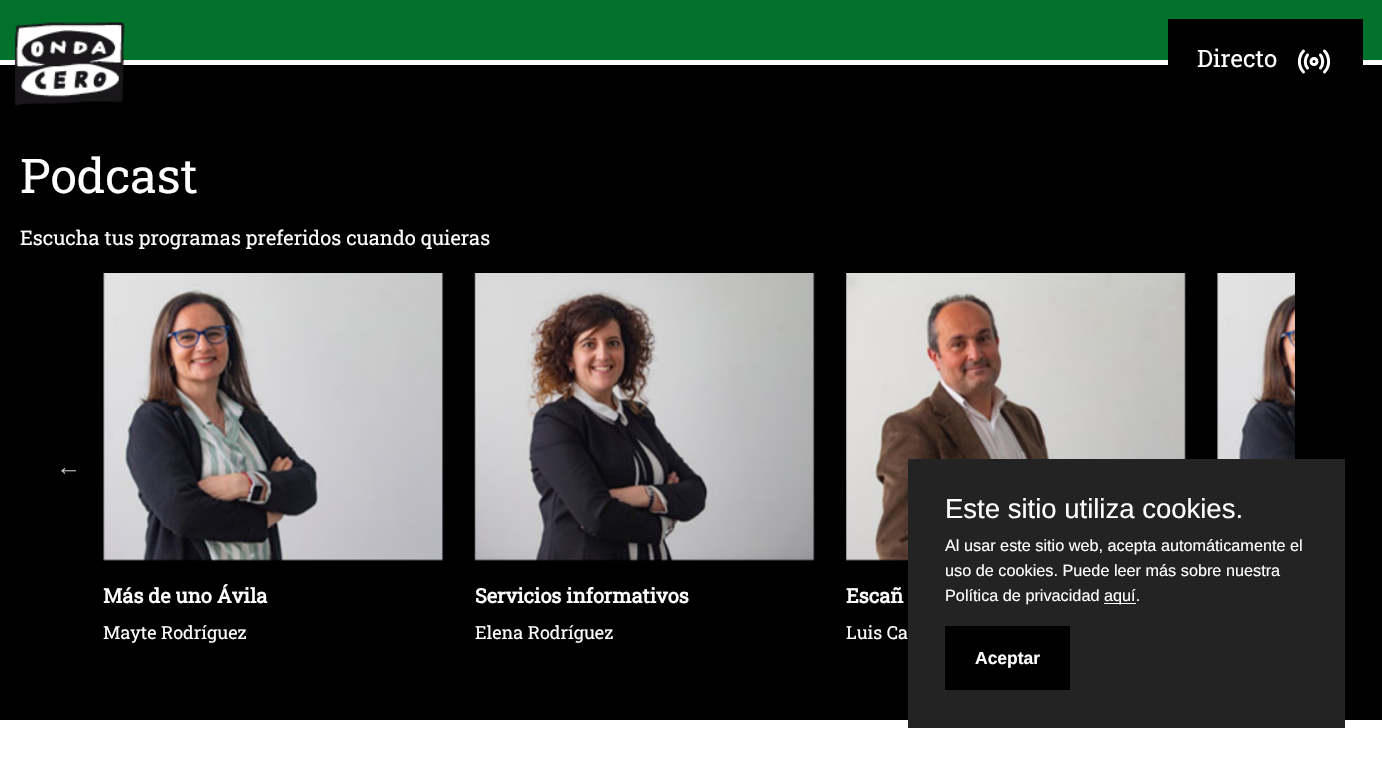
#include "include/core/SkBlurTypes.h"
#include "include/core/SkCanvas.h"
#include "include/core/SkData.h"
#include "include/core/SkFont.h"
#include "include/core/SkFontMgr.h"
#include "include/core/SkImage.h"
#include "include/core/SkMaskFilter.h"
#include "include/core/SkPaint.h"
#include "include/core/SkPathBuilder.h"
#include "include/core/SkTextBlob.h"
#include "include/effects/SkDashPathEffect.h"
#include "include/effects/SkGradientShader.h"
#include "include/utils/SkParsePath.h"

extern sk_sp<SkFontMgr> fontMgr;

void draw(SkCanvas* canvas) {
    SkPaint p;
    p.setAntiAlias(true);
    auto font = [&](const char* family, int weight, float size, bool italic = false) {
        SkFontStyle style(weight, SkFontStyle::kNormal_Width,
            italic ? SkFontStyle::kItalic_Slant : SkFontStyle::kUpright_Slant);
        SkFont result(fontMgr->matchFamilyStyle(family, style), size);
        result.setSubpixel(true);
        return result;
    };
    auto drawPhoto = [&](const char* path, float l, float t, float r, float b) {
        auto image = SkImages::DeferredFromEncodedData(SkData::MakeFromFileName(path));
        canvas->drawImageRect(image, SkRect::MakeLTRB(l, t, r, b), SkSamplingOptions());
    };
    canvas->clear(0xFFFFFFFF);
    p.setColor(0xFF00722C);
    canvas->drawRect(SkRect::MakeLTRB(0, 0, 1382, 60), p);
    p.setColor(0xFF000000);
    canvas->drawRect(SkRect::MakeLTRB(0, 65, 1382, 720), p);
    drawPhoto("media/1.png", 14, 22, 125, 106);
    canvas->drawRect(SkRect::MakeLTRB(1168, 19, 1363, 65), p);
    auto font1 = font("Roboto Slab", 400, 24);
    p.setColor(0xFFFFFFFF);
    canvas->drawString("Directo", 1197, 67, font1, p);
    p.setStyle(SkPaint::kStroke_Style);
    p.setStrokeWidth(3);
    canvas->drawCircle(1314, 61.5f, 3, p);
    p.setStrokeCap(SkPaint::kRound_Cap);
    p.setStrokeJoin(SkPaint::kRound_Join);
    canvas->drawPath(SkPathBuilder().moveTo(1320.5f, 55).cubicTo(1323.5f, 58.5f, 1323.5f, 64.5f, 1320.5f, 68).moveTo(1307.5f, 68).cubicTo(1304.5f, 64.5f, 1304.5f, 58.5f, 1307.5f, 55).moveTo(1324.5f, 51).cubicTo(1330, 57, 1330, 66, 1324.5f, 72).moveTo(1303.5f, 72).cubicTo(1298, 66, 1298, 57, 1303.5f, 51).detach(), p);
    auto font2 = font("Roboto Slab", 400, 48);
    p.setStyle(SkPaint::kFill_Style);
    canvas->drawString("Podcast", 20, 193, font2, p);
    auto font3 = font("Roboto Slab", 400, 20);
    canvas->drawString("Escucha tus programas preferidos cuando quieras", 20, 245, font3, p);
    auto font4 = font("Liberation Serif", 400, 25);
    p.setColor(0xFFBFBFBF);
    canvas->drawString("←", 56, 475, font4, p);
    drawPhoto("media/2.png", 1217, 273, 1295, 459);
    drawPhoto("media/3.png", 103, 273, 444, 561);
    auto font5 = font("Roboto Slab", 700, 20);
    p.setColor(0xFFFFFFFF);
    canvas->drawString("Más de uno Ávila", 103, 603, font5, p);
    auto font6 = font("Roboto Slab", 400, 18);
    canvas->drawString("Mayte Rodríguez", 103, 639, font6, p);
    drawPhoto("media/4.png", 474, 273, 815, 561);
    canvas->drawString("Servicios informativos", 475, 603, font5, p);
    canvas->drawString("Elena Rodríguez", 475, 639, font6, p);
    drawPhoto("media/5.png", 846, 273, 1186, 561);
    canvas->drawString("Escañ", 846, 603, font5, p);
    canvas->drawString("Luis Ca", 846, 639, font6, p);
    p.setColor(0xFF232323);
    canvas->drawRect(SkRect::MakeLTRB(908, 459, 1345, 728), p);
    auto font7 = font("Liberation Sans", 400, 27.5f);
    p.setColor(0xFFFFFFFF);
    canvas->drawString("Este sitio utiliza cookies.", 945, 518, font7, p);
    auto font8 = font("Liberation Sans", 400, 16.25f);
    {
        const struct { const char* s; float x, y; } items[] = {
            {"Al usar este sitio web, acepta automáticamente el", 945, 551},
            {"uso de cookies. Puede leer más sobre nuestra", 945, 576},
            {"Política de privacidad", 945, 601},
        };
        for (auto [s, x, y] : items) {
            canvas->drawString(s, x, y, font8, p);
        }
    }
    canvas->drawRect(SkRect::MakeLTRB(1104, 603, 1136, 604), p);
    canvas->drawString("aquí.", 1104, 601, font8, p);
    p.setColor(0xFF000000);
    canvas->drawRect(SkRect::MakeLTRB(945, 626, 1070, 690), p);
    auto font9 = font("Liberation Sans", 700, 17.5f);
    p.setColor(0xFFFFFFFF);
    canvas->drawString("Aceptar", 975, 664, font9, p);
}
